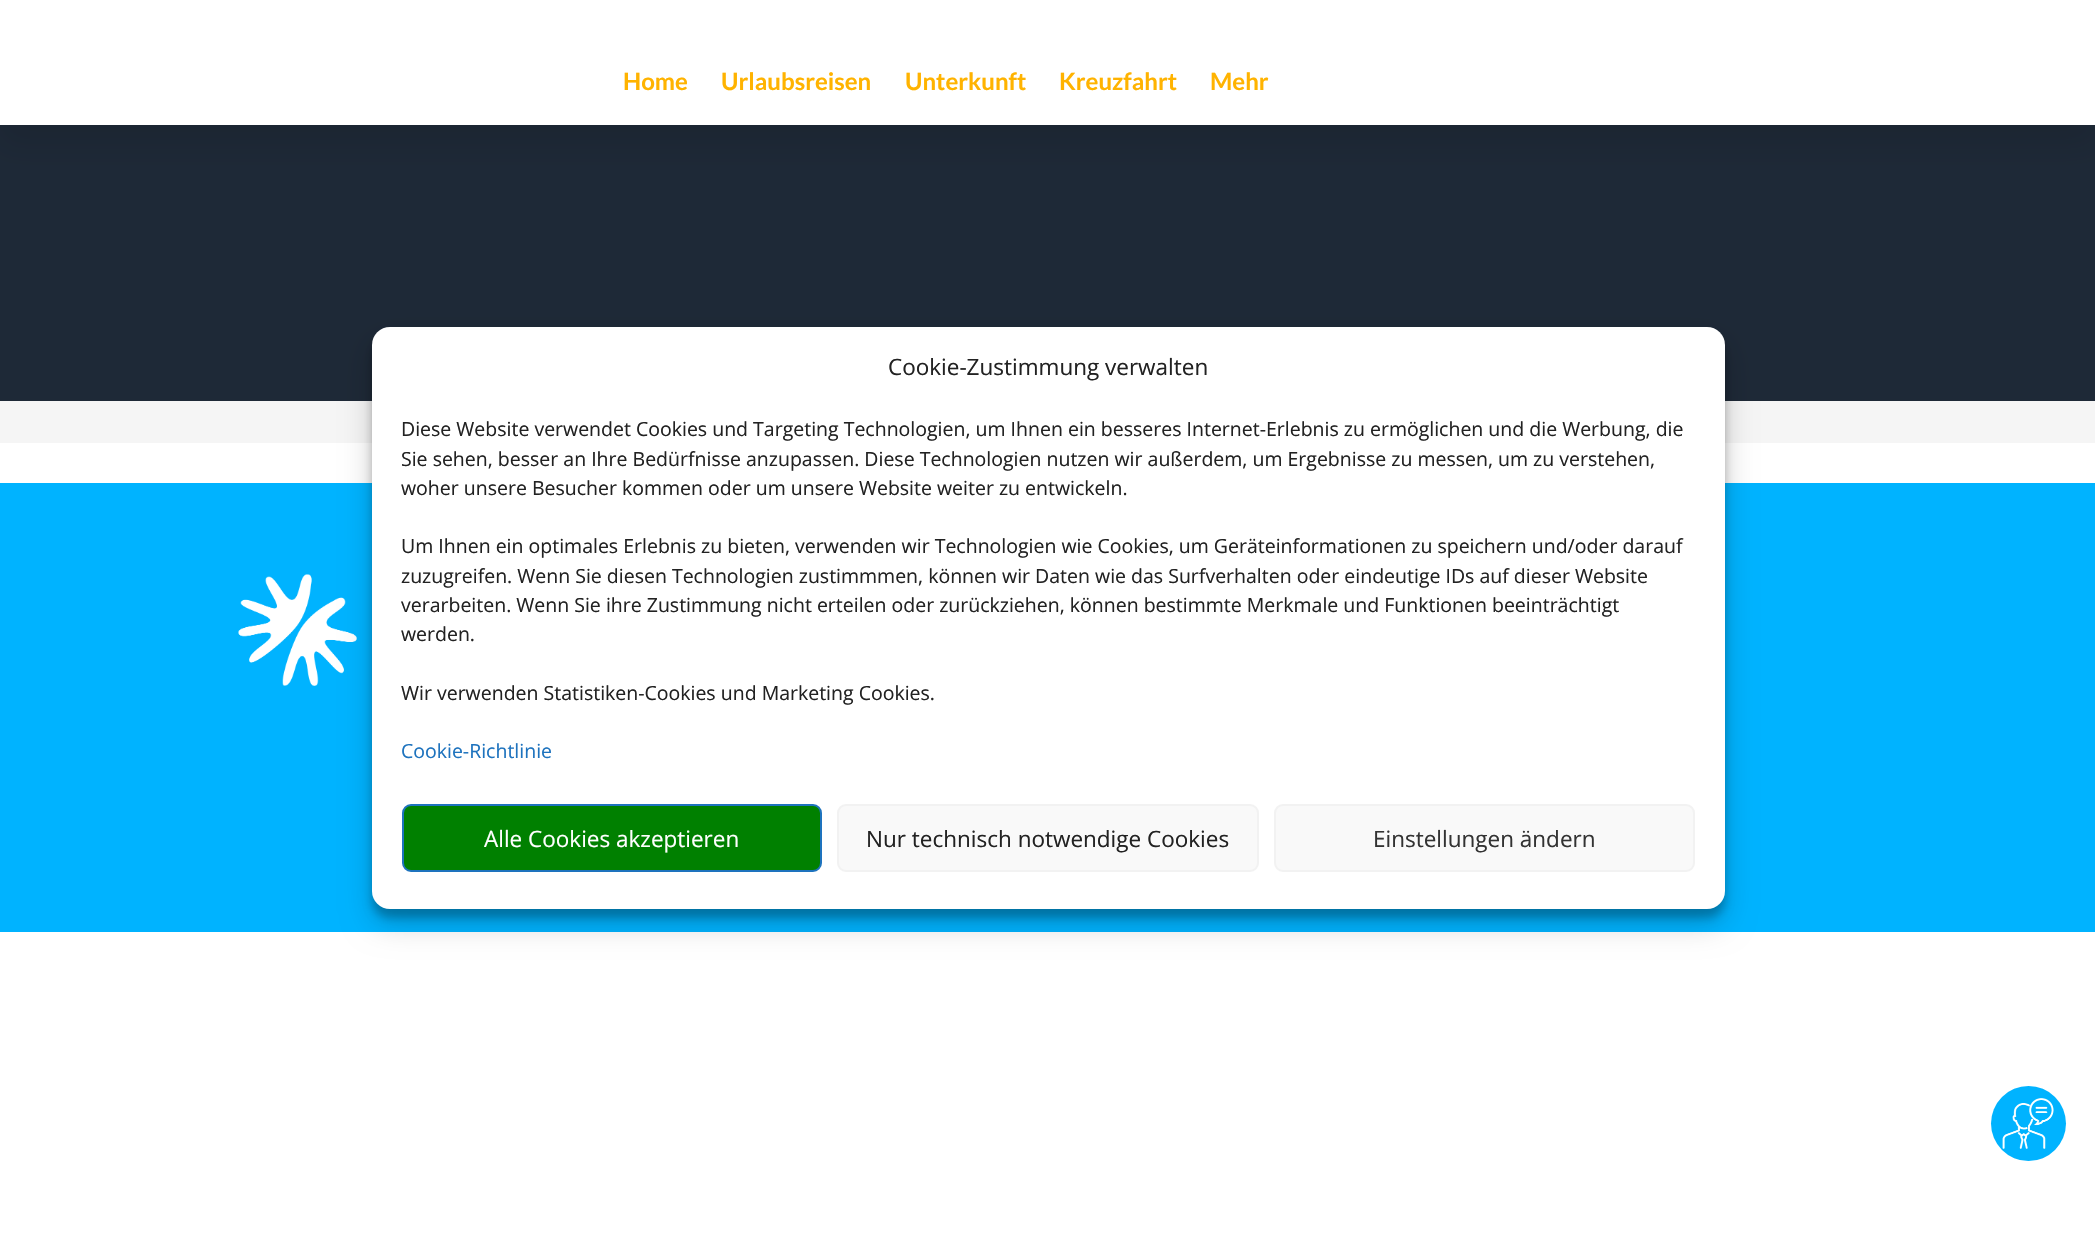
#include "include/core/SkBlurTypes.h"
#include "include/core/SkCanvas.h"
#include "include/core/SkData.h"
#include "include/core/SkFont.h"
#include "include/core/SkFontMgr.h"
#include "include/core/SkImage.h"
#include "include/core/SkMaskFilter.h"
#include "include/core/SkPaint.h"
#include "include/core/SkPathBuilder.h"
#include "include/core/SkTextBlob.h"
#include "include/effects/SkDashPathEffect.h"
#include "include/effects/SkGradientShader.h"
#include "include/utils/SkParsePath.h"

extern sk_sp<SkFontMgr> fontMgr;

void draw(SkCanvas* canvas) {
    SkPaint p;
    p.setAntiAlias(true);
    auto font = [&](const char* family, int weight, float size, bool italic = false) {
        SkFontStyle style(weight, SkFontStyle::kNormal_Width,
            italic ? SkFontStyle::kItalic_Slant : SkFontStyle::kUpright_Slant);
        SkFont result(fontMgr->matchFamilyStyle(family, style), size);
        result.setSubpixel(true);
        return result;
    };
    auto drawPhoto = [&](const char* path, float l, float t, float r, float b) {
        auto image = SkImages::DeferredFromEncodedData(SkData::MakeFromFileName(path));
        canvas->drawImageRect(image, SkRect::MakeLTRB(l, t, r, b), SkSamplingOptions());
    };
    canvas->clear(0xFFFFFFFF);
    p.setColor(0xFF1E2937);
    canvas->drawRect(SkRect::MakeLTRB(0, 125, 2095, 401), p);
    p.setColor(0x1A000000);
    p.setMaskFilter(SkMaskFilter::MakeBlur(kNormal_SkBlurStyle, 15));
    canvas->drawRect(SkRect::MakeLTRB(0, 18, 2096, 143), p);
    p.setMaskFilter(nullptr);
    p.setColor(0xFFFFFFFF);
    canvas->drawRect(SkRect::MakeLTRB(0, 0, 2095, 125), p);
    auto font1 = font("Lato", 700, 24);
    p.setColor(0xFFFFB300);
    {
        const struct { const char* s; float x, y; } items[] = {
            {"Home", 623, 90},
            {"Urlaubsreisen", 721, 90},
            {"Unterkunft", 905, 90},
            {"Kreuzfahrt", 1059, 90},
            {"Mehr", 1210, 90},
        };
        for (auto [s, x, y] : items) {
            canvas->drawString(s, x, y, font1, p);
        }
    }
    p.setColor(0xFFF5F5F5);
    canvas->drawRect(SkRect::MakeLTRB(0, 401, 2095, 443), p);
    p.setColor(0xFF00B3FF);
    canvas->drawRect(SkRect::MakeLTRB(0, 483, 2095, 932), p);
    drawPhoto("media/1.png", 238, 574, 357, 686);
    canvas->drawCircle(2028.5f, 1123.5f, 37.5f, p);
    drawPhoto("media/2.png", 2002, 1098, 2054, 1149);
    p.setColor(0x3B000000);
    p.setMaskFilter(SkMaskFilter::MakeBlur(kNormal_SkBlurStyle, 4.5f));
    canvas->drawRoundRect(SkRect::MakeLTRB(372, 336, 1725, 918), 18, 18, p);
    p.setMaskFilter(nullptr);
    p.setColor(0x30000000);
    p.setMaskFilter(SkMaskFilter::MakeBlur(kNormal_SkBlurStyle, 15));
    canvas->drawRoundRect(SkRect::MakeLTRB(372, 342, 1725, 924), 18, 18, p);
    p.setMaskFilter(nullptr);
    p.setColor(0xFFFFFFFF);
    canvas->drawRoundRect(SkRect::MakeLTRB(372, 327, 1725, 909), 18, 18, p);
    auto font2 = font("Open Sans", 400, 22.5f);
    p.setColor(0xFF222222);
    canvas->drawString("Cookie-Zustimmung verwalten", 888, 375, font2, p);
    auto font3 = font("Open Sans", 400, 19.5f);
    {
        const struct { const char* s; float x, y; } items[] = {
            {"Diese Website verwendet Cookies und Targeting Technologien, um Ihnen ein besseres Internet-Erlebnis zu ermöglichen und die Werbung, die", 401, 436},
            {"Sie sehen, besser an Ihre Bedürfnisse anzupassen. Diese Technologien nutzen wir außerdem, um Ergebnisse zu messen, um zu verstehen,", 401, 466},
            {"woher unsere Besucher kommen oder um unsere Website weiter zu entwickeln.", 401, 495},
            {"Um Ihnen ein optimales Erlebnis zu bieten, verwenden wir Technologien wie Cookies, um Geräteinformationen zu speichern und/oder darauf", 401, 553},
            {"zuzugreifen. Wenn Sie diesen Technologien zustimmmen, können wir Daten wie das Surfverhalten oder eindeutige IDs auf dieser Website", 401, 583},
            {"verarbeiten. Wenn Sie ihre Zustimmung nicht erteilen oder zurückziehen, können bestimmte Merkmale und Funktionen beeinträchtigt", 401, 612},
            {"werden.", 401, 641},
            {"Wir verwenden Statistiken-Cookies und Marketing Cookies.", 401, 700},
        };
        for (auto [s, x, y] : items) {
            canvas->drawString(s, x, y, font3, p);
        }
    }
    p.setColor(0xFF1E73BE);
    canvas->drawString("Cookie-Richtlinie", 401, 758, font3, p);
    p.setColor(0xFF008000);
    canvas->drawRoundRect(SkRect::MakeLTRB(403, 805, 821, 871), 8, 8, p);
    p.setStyle(SkPaint::kStroke_Style);
    p.setStrokeWidth(2);
    p.setColor(0xFF1E73BE);
    canvas->drawRoundRect(SkRect::MakeLTRB(403, 805, 821, 871), 8, 8, p);
    p.setStyle(SkPaint::kFill_Style);
    p.setColor(0xFFFFFFFF);
    canvas->drawString("Alle Cookies akzeptieren", 484, 847, font2, p);
    p.setColor(0xFFF9F9F9);
    canvas->drawRoundRect(SkRect::MakeLTRB(838, 805, 1258, 871), 8, 8, p);
    p.setStyle(SkPaint::kStroke_Style);
    p.setColor(0xFFF2F2F2);
    canvas->drawRoundRect(SkRect::MakeLTRB(838, 805, 1258, 871), 8, 8, p);
    p.setStyle(SkPaint::kFill_Style);
    p.setColor(0xFF222222);
    canvas->drawString("Nur technisch notwendige Cookies", 866, 847, font2, p);
    p.setColor(0xFFF9F9F9);
    canvas->drawRoundRect(SkRect::MakeLTRB(1275, 805, 1694, 871), 8, 8, p);
    p.setStyle(SkPaint::kStroke_Style);
    p.setColor(0xFFF2F2F2);
    canvas->drawRoundRect(SkRect::MakeLTRB(1275, 805, 1694, 871), 8, 8, p);
    p.setStyle(SkPaint::kFill_Style);
    p.setColor(0xFF333333);
    canvas->drawString("Einstellungen ändern", 1373, 847, font2, p);
}
